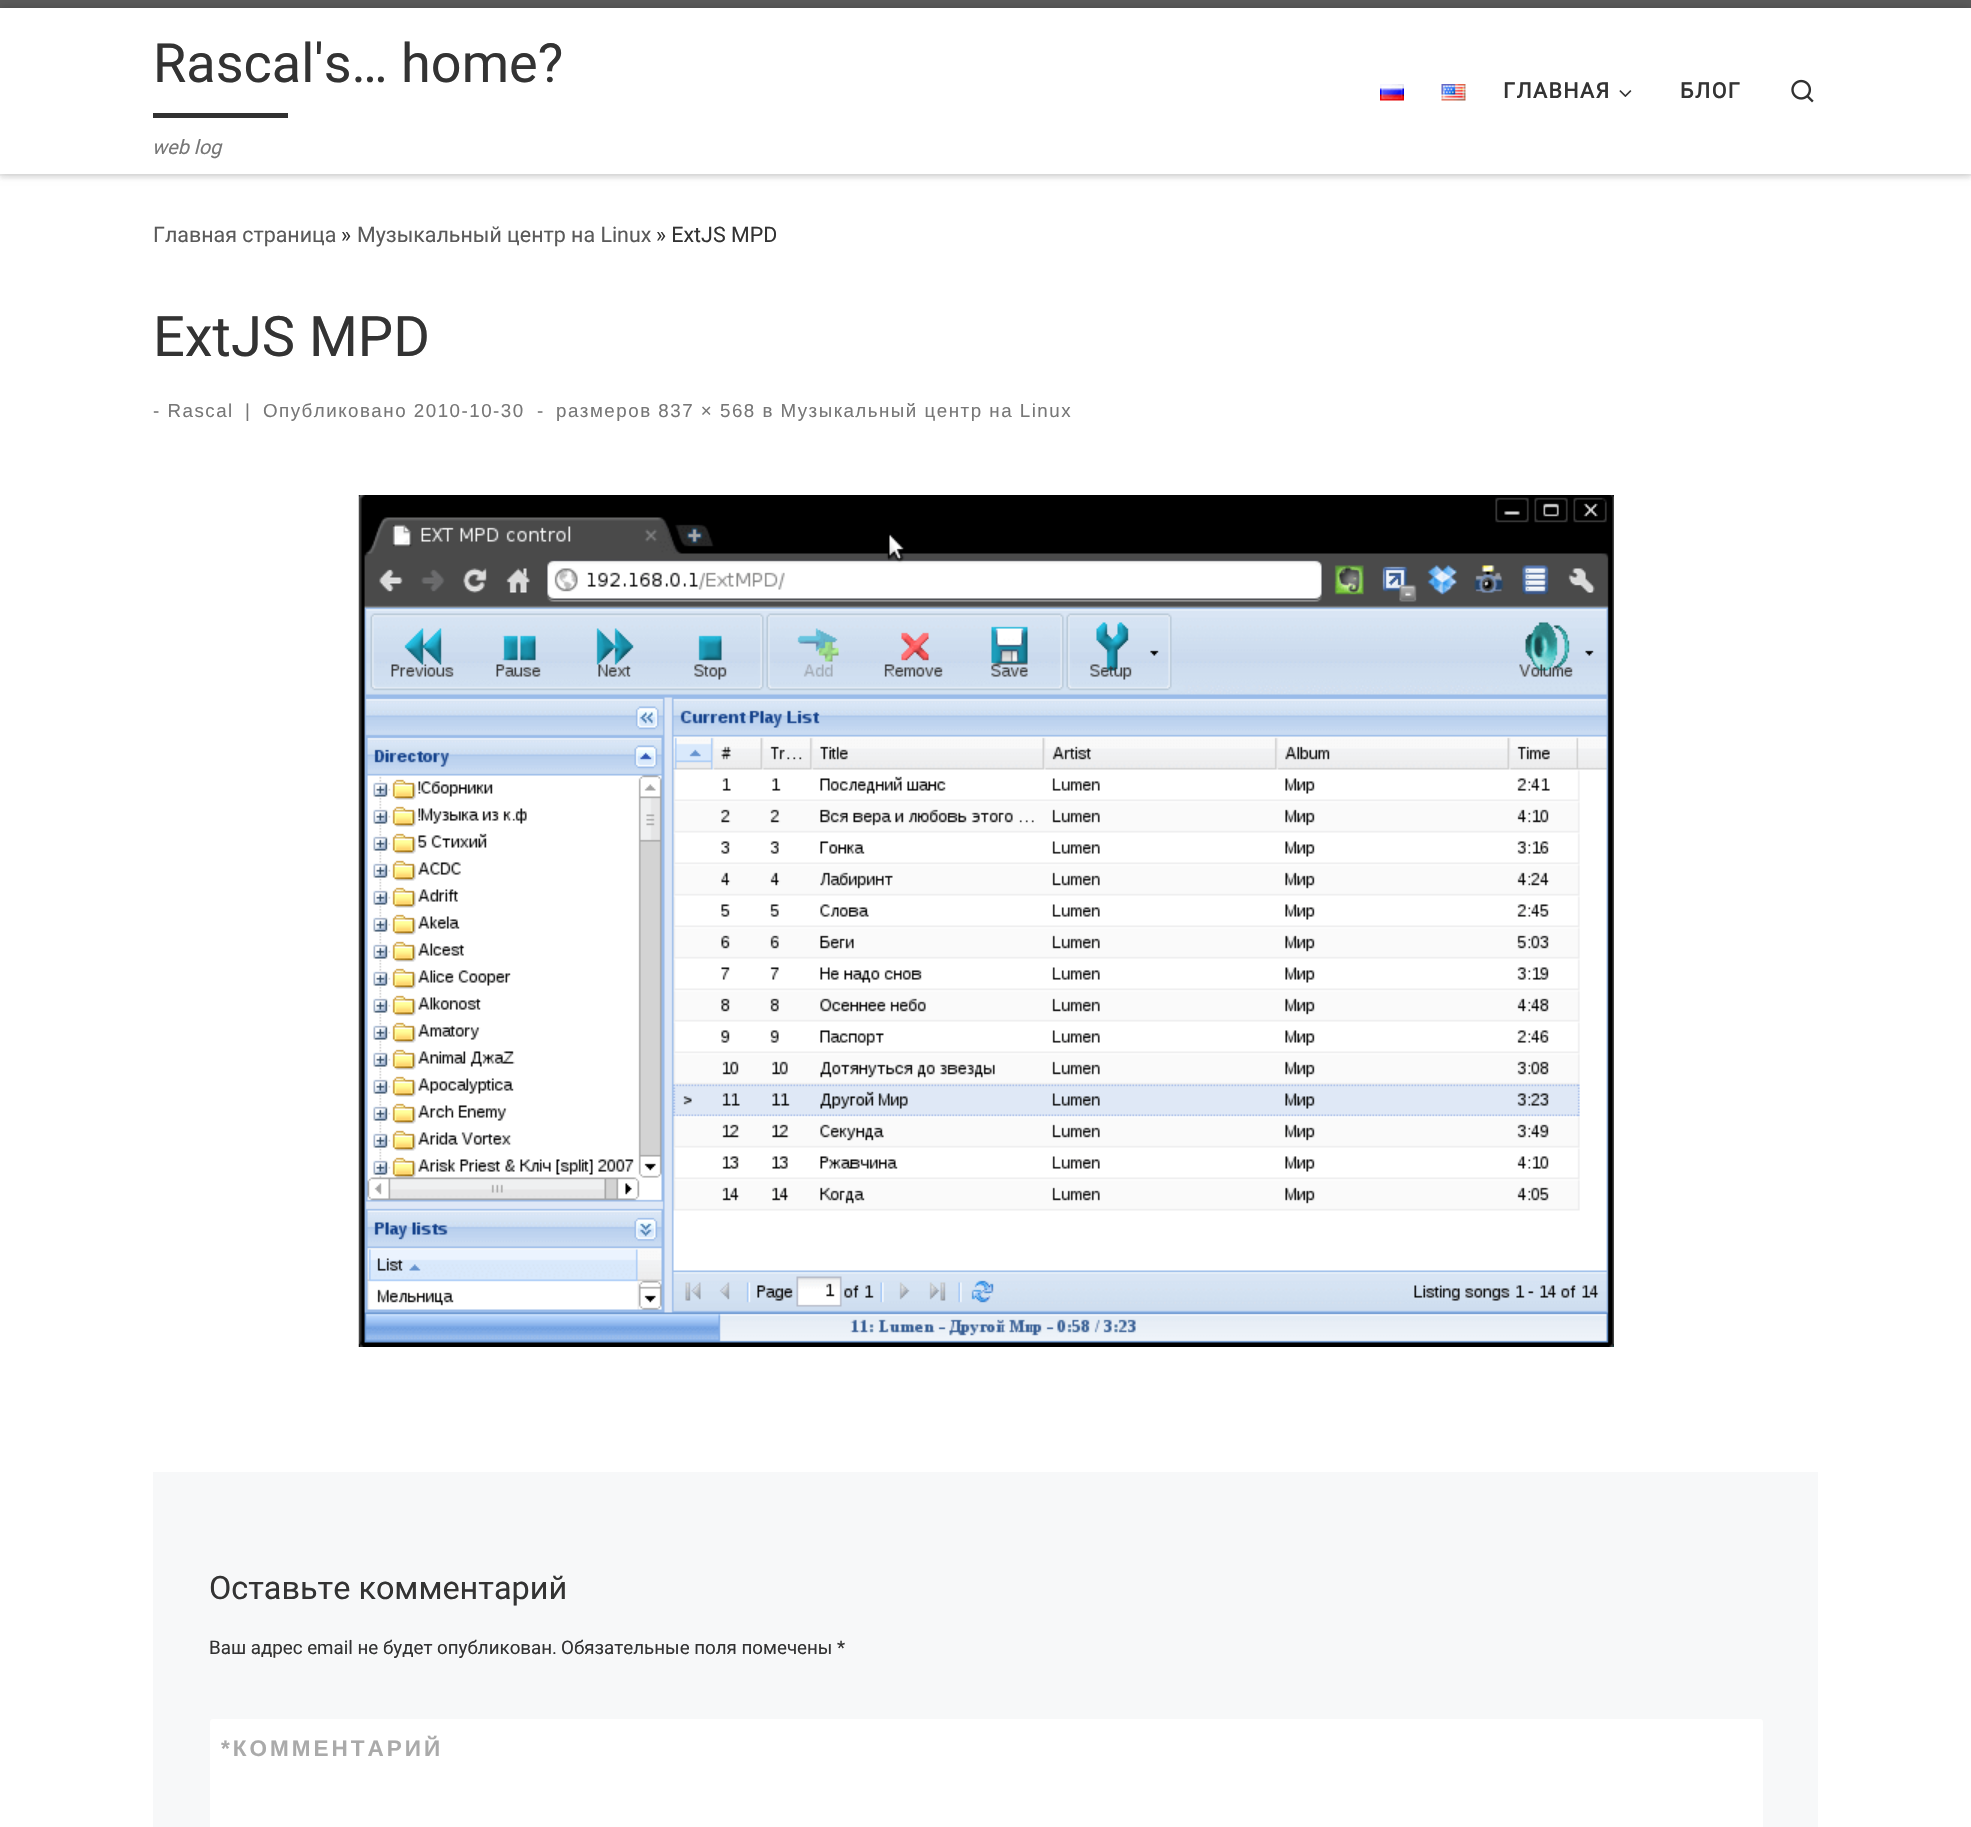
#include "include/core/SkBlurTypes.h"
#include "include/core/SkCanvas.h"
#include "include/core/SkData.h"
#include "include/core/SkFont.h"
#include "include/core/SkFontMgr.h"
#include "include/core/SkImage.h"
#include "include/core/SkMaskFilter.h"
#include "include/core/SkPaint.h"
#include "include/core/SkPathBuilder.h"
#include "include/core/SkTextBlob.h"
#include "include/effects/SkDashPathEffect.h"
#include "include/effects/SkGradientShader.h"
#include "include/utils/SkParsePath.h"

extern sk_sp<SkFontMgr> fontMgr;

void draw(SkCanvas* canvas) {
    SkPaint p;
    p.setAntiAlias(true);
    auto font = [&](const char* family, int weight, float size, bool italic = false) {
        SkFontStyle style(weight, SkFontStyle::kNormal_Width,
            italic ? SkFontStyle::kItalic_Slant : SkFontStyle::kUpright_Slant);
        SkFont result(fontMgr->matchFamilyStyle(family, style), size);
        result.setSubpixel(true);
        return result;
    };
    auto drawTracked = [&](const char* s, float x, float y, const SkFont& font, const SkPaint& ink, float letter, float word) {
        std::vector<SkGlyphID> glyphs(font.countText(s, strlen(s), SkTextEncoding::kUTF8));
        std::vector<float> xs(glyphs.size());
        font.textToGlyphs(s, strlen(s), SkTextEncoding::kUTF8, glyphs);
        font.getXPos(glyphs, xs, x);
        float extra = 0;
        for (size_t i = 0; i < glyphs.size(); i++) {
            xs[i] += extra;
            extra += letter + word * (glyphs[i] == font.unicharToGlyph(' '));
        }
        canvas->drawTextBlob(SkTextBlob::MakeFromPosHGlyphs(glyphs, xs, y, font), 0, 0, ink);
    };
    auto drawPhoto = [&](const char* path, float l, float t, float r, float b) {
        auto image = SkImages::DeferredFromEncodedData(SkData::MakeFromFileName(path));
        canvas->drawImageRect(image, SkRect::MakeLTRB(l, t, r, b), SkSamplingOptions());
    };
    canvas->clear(0xFFFFFFFF);
    p.setColor(0x14666666);
    p.setMaskFilter(SkMaskFilter::MakeBlur(kNormal_SkBlurStyle, 1.5f));
    canvas->drawRect(SkRect::MakeLTRB(0, 3, 1971, 179), p);
    p.setMaskFilter(nullptr);
    {
        const struct { float l, t, r, b; SkColor color; } items[] = {
            {0, 8, 1971, 174, 0xFFFFFFFF},
            {0, 0, 1971, 8, 0xFF5A5A5A},
            {0, 174, 1971, 176, 0xFFEFEFEF},
        };
        for (auto [l, t, r, b, color] : items) {
            p.setColor(color);
            canvas->drawRect(SkRect::MakeLTRB(l, t, r, b), p);
        }
    }
    canvas->save();
    canvas->clipPath(SkPathBuilder(SkPathFillType::kEvenOdd).moveTo(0, 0).lineTo(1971, 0).lineTo(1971, 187).lineTo(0, 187).close().moveTo(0, 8).lineTo(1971, 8).lineTo(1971, 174).lineTo(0, 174).close().detach(), true);
    p.setColor(0x33000000);
    p.setMaskFilter(SkMaskFilter::MakeBlur(kNormal_SkBlurStyle, 4));
    canvas->drawRect(SkRect::MakeLTRB(0, 8, 1971, 174), p);
    p.setMaskFilter(nullptr);
    canvas->restore();
    auto font1 = font("Roboto", 400, 54);
    p.setColor(0xFF333333);
    canvas->drawString("Rascal's… home?", 153, 82, font1, p);
    p.setColor(0xFF313131);
    canvas->drawRect(SkRect::MakeLTRB(153, 113, 288, 118), p);
    auto font2 = font("Roboto", 400, 20, true);
    p.setColor(0xFF777777);
    canvas->drawString("web log", 152, 154, font2, p);
    drawPhoto("media/1.png", 1380, 84, 1404, 101);
    drawPhoto("media/2.png", 1441, 84, 1466, 101);
    auto font3 = font("Roboto", 700, 21.4f);
    p.setColor(0xFF333333);
    drawTracked("ГЛАВНАЯ", 1503, 98, font3, p, 1.5f, 0);
    drawPhoto("media/3.png", 1619, 90, 1632, 97);
    drawTracked("БЛОГ", 1680, 98, font3, p, 1.5f, 0);
    drawPhoto("media/4.png", 1791, 79, 1814, 103);
    auto font4 = font("Roboto", 400, 21.4f);
    p.setColor(0xFF5A5A5A);
    canvas->drawString("Главная страница", 153, 242, font4, p);
    p.setColor(0xFF333333);
    canvas->drawString("»", 341, 242, font4, p);
    p.setColor(0xFF5A5A5A);
    canvas->drawString("Музыкальный центр на Linux", 357, 242, font4, p);
    p.setColor(0xFF333333);
    canvas->drawString("» ExtJS MPD", 656, 242, font4, p);
    auto font5 = font("Roboto", 400, 56);
    canvas->drawString("ExtJS MPD", 153, 356, font5, p);
    auto font6 = font("Liberation Sans", 400, 18.75f);
    p.setColor(0xFF777777);
    {
        const struct { const char* s; float x, y; } items[] = {
            {"- Rascal", 153, 417},
            {"|", 245, 417},
            {"Опубликовано 2010-10-30", 263, 417},
            {"-", 537, 417},
            {"размеров 837 × 568 в Музыкальный центр на Linux", 556, 417},
        };
        for (auto [s, x, y] : items) {
            drawTracked(s, x, y, font6, p, 1.5f, 0);
        }
    }
    drawPhoto("media/5.png", 358, 495, 1614, 1347);
    p.setColor(0xFFF7F8F9);
    canvas->drawRect(SkRect::MakeLTRB(153, 1472, 1818, 1827), p);
    auto font7 = font("Roboto", 400, 32.4f);
    p.setColor(0xFF333333);
    canvas->drawString("Оставьте комментарий", 209, 1599, font7, p);
    auto font8 = font("Roboto", 400, 18.75f);
    {
        const struct { const char* s; float x, y; } items[] = {
            {"Ваш адрес email не будет опубликован.", 209, 1654},
            {"Обязательные поля помечены", 561, 1654},
            {"*", 837, 1654},
        };
        for (auto [s, x, y] : items) {
            canvas->drawString(s, x, y, font8, p);
        }
    }
    p.setColor(0xFFFFFFFF);
    canvas->drawRoundRect(SkRect::MakeLTRB(210, 1719, 1763, 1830), 3, 3, p);
    auto font9 = font("Liberation Sans", 700, 22.5f);
    p.setColor(0xFFAAAAAA);
    drawTracked("*КОММЕНТАРИЙ", 221, 1756, font9, p, 3, 0);
}
